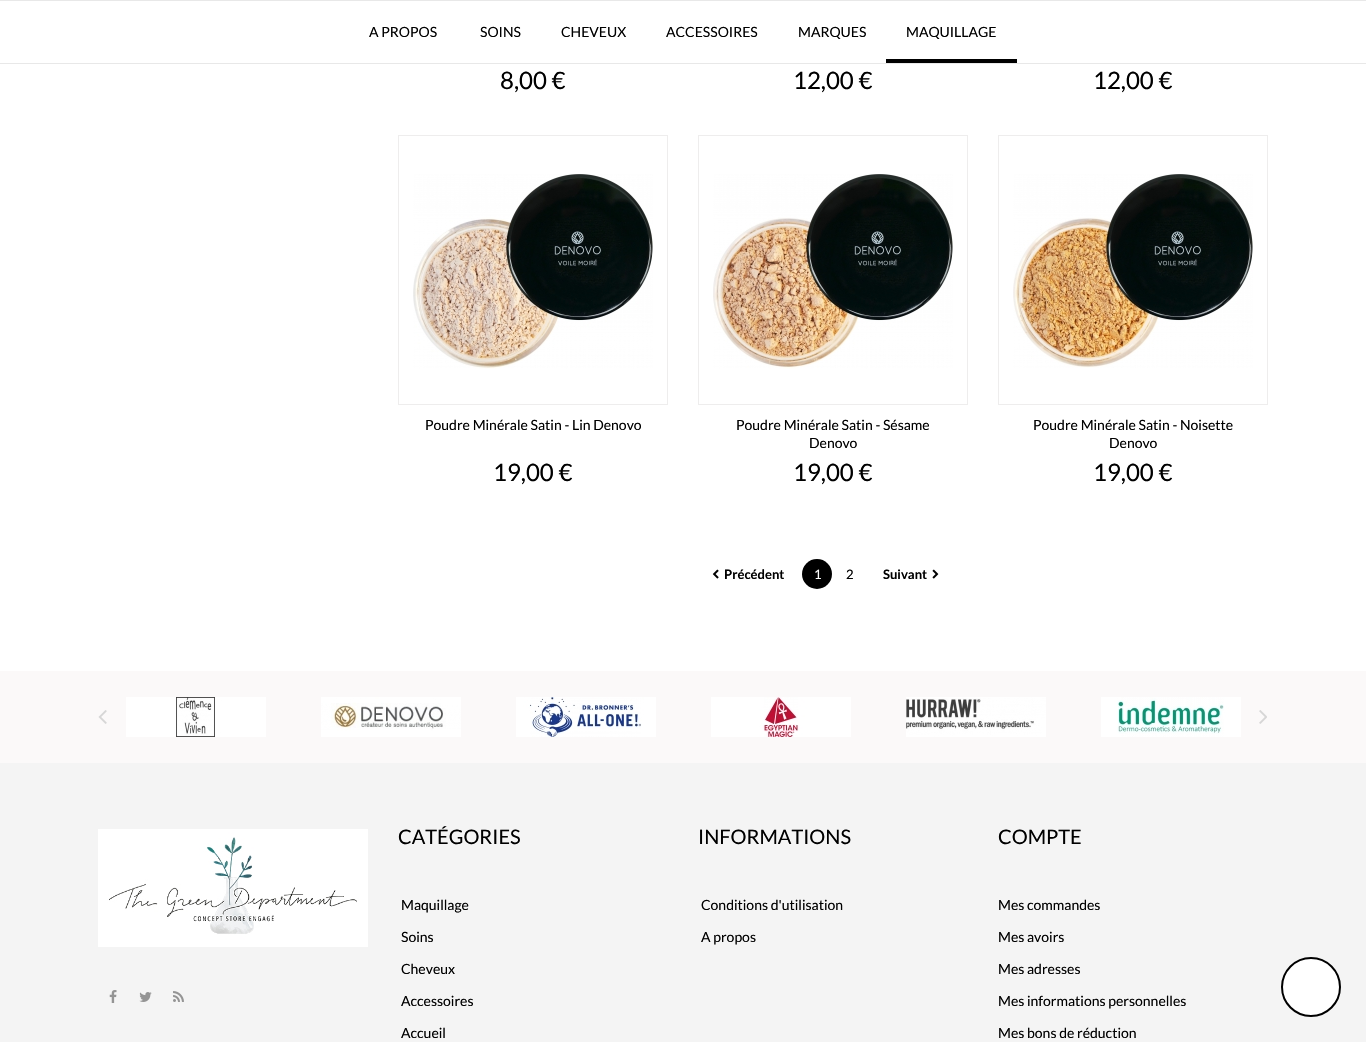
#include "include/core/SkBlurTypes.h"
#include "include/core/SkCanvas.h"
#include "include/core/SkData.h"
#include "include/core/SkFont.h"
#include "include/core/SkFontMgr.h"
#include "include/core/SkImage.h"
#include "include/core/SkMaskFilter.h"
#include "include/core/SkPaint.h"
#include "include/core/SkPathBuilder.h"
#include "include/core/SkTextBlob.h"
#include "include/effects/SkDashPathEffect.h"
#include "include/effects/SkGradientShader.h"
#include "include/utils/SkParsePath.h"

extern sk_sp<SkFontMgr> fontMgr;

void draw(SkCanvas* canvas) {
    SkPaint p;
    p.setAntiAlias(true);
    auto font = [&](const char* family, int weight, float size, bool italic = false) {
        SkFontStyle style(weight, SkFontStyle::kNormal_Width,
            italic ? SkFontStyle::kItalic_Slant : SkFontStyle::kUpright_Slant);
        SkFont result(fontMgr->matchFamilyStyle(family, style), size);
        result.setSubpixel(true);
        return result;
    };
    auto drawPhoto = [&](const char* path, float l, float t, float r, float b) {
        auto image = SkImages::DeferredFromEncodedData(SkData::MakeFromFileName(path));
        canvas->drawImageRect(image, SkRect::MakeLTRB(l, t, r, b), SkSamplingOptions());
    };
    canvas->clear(0xFFFFFFFF);
    p.setColor(0xFFE8E8E8);
    canvas->drawRect(SkRect::MakeLTRB(0, 0, 1366, 1), p);
    canvas->drawRect(SkRect::MakeLTRB(0, 63, 1366, 64), p);
    auto font1 = font("Lato", 400, 14);
    p.setColor(0xFF000000);
    {
        const struct { const char* s; float x, y; } items[] = {
            {"A PROPOS", 369, 37},
            {"SOINS", 480, 37},
            {"CHEVEUX", 561, 37},
            {"ACCESSOIRES", 666, 37},
            {"MARQUES", 798, 37},
        };
        for (auto [s, x, y] : items) {
            canvas->drawString(s, x, y, font1, p);
        }
    }
    canvas->drawRect(SkRect::MakeLTRB(886, 59, 1017, 63), p);
    canvas->drawString("MAQUILLAGE", 906, 37, font1, p);
    auto font2 = font("Lato", 400, 24);
    {
        const struct { const char* s; float x, y; } items[] = {
            {"8,00 €", 500, 89},
            {"12,00 €", 793, 89},
            {"12,00 €", 1093, 89},
        };
        for (auto [s, x, y] : items) {
            canvas->drawString(s, x, y, font2, p);
        }
    }
    p.setStyle(SkPaint::kStroke_Style);
    p.setStrokeWidth(1);
    p.setColor(0xFFEEEDED);
    canvas->drawRect(SkRect::MakeLTRB(398.5f, 135.5f, 667.5f, 404.5f), p);
    drawPhoto("media/1.png", 413, 174, 653, 369);
    p.setStyle(SkPaint::kFill_Style);
    p.setColor(0xFF000000);
    canvas->drawString("Poudre Minérale Satin - Lin Denovo", 425, 430, font1, p);
    canvas->drawString("19,00 €", 493, 481, font2, p);
    p.setStyle(SkPaint::kStroke_Style);
    p.setColor(0xFFEEEDED);
    canvas->drawRect(SkRect::MakeLTRB(698.5f, 135.5f, 967.5f, 404.5f), p);
    drawPhoto("media/2.png", 713, 174, 953, 369);
    p.setStyle(SkPaint::kFill_Style);
    p.setColor(0xFF000000);
    canvas->drawString("Poudre Minérale Satin - Sésame", 736, 430, font1, p);
    canvas->drawString("Denovo", 809, 448, font1, p);
    canvas->drawString("19,00 €", 793, 481, font2, p);
    p.setStyle(SkPaint::kStroke_Style);
    p.setColor(0xFFEEEDED);
    canvas->drawRect(SkRect::MakeLTRB(998.5f, 135.5f, 1267.5f, 404.5f), p);
    drawPhoto("media/3.png", 1013, 174, 1253, 368);
    p.setStyle(SkPaint::kFill_Style);
    p.setColor(0xFF000000);
    canvas->drawString("Poudre Minérale Satin - Noisette", 1033, 430, font1, p);
    canvas->drawString("Denovo", 1109, 448, font1, p);
    canvas->drawString("19,00 €", 1093, 481, font2, p);
    drawPhoto("media/4.png", 712, 569, 719, 579);
    auto font3 = font("Lato", 700, 13);
    canvas->drawString("Précédent", 724, 579, font3, p);
    canvas->drawCircle(817, 574, 15, p);
    auto font4 = font("Lato", 400, 13);
    p.setColor(0xFFFFFFFF);
    canvas->drawString("1", 814, 579, font4, p);
    p.setColor(0xFF000000);
    canvas->drawString("2", 846, 579, font4, p);
    canvas->drawString("Suivant", 883, 579, font3, p);
    drawPhoto("media/5.png", 932, 569, 939, 579);
    p.setColor(0xFFFBF9F9);
    canvas->drawRect(SkRect::MakeLTRB(0, 671, 1366, 763), p);
    drawPhoto("media/6.png", 98, 710, 107, 724);
    drawPhoto("media/7.png", 126, 697, 266, 737);
    drawPhoto("media/8.png", 321, 697, 461, 737);
    drawPhoto("media/9.png", 516, 697, 656, 737);
    drawPhoto("media/10.png", 711, 697, 851, 737);
    drawPhoto("media/11.png", 906, 697, 1046, 737);
    drawPhoto("media/12.png", 1101, 697, 1241, 737);
    drawPhoto("media/13.png", 1259, 710, 1267, 724);
    p.setColor(0xFFF4F4F4);
    canvas->drawRect(SkRect::MakeLTRB(0, 763, 1366, 1042), p);
    drawPhoto("media/14.png", 98, 829, 368, 947);
    drawPhoto("media/15.png", 109, 990, 117, 1003);
    drawPhoto("media/16.png", 139, 992, 152, 1002);
    drawPhoto("media/17.png", 173, 991, 184, 1002);
    auto font5 = font("Lato", 400, 20);
    p.setColor(0xFF000000);
    canvas->drawString("CATÉGORIES", 398, 844, font5, p);
    {
        const struct { const char* s; float x, y; } items[] = {
            {"Maquillage", 401, 910},
            {"Soins", 401, 942},
            {"Cheveux", 401, 974},
            {"Accessoires", 401, 1006},
            {"Accueil", 401, 1038},
        };
        for (auto [s, x, y] : items) {
            canvas->drawString(s, x, y, font1, p);
        }
    }
    canvas->drawString("INFORMATIONS", 698, 844, font5, p);
    canvas->drawString("Conditions d'utilisation", 701, 910, font1, p);
    canvas->drawString("A propos", 701, 942, font1, p);
    canvas->drawString("COMPTE", 998, 844, font5, p);
    {
        const struct { const char* s; float x, y; } items[] = {
            {"Mes commandes", 998, 910},
            {"Mes avoirs", 998, 942},
            {"Mes adresses", 998, 974},
            {"Mes informations personnelles", 998, 1006},
            {"Mes bons de réduction", 998, 1038},
        };
        for (auto [s, x, y] : items) {
            canvas->drawString(s, x, y, font1, p);
        }
    }
    p.setColor(0xFFFFFFFF);
    canvas->drawCircle(1311, 987, 29, p);
    p.setStyle(SkPaint::kStroke_Style);
    p.setStrokeWidth(2);
    p.setColor(0xFF000000);
    canvas->drawCircle(1311, 987, 29, p);
}
